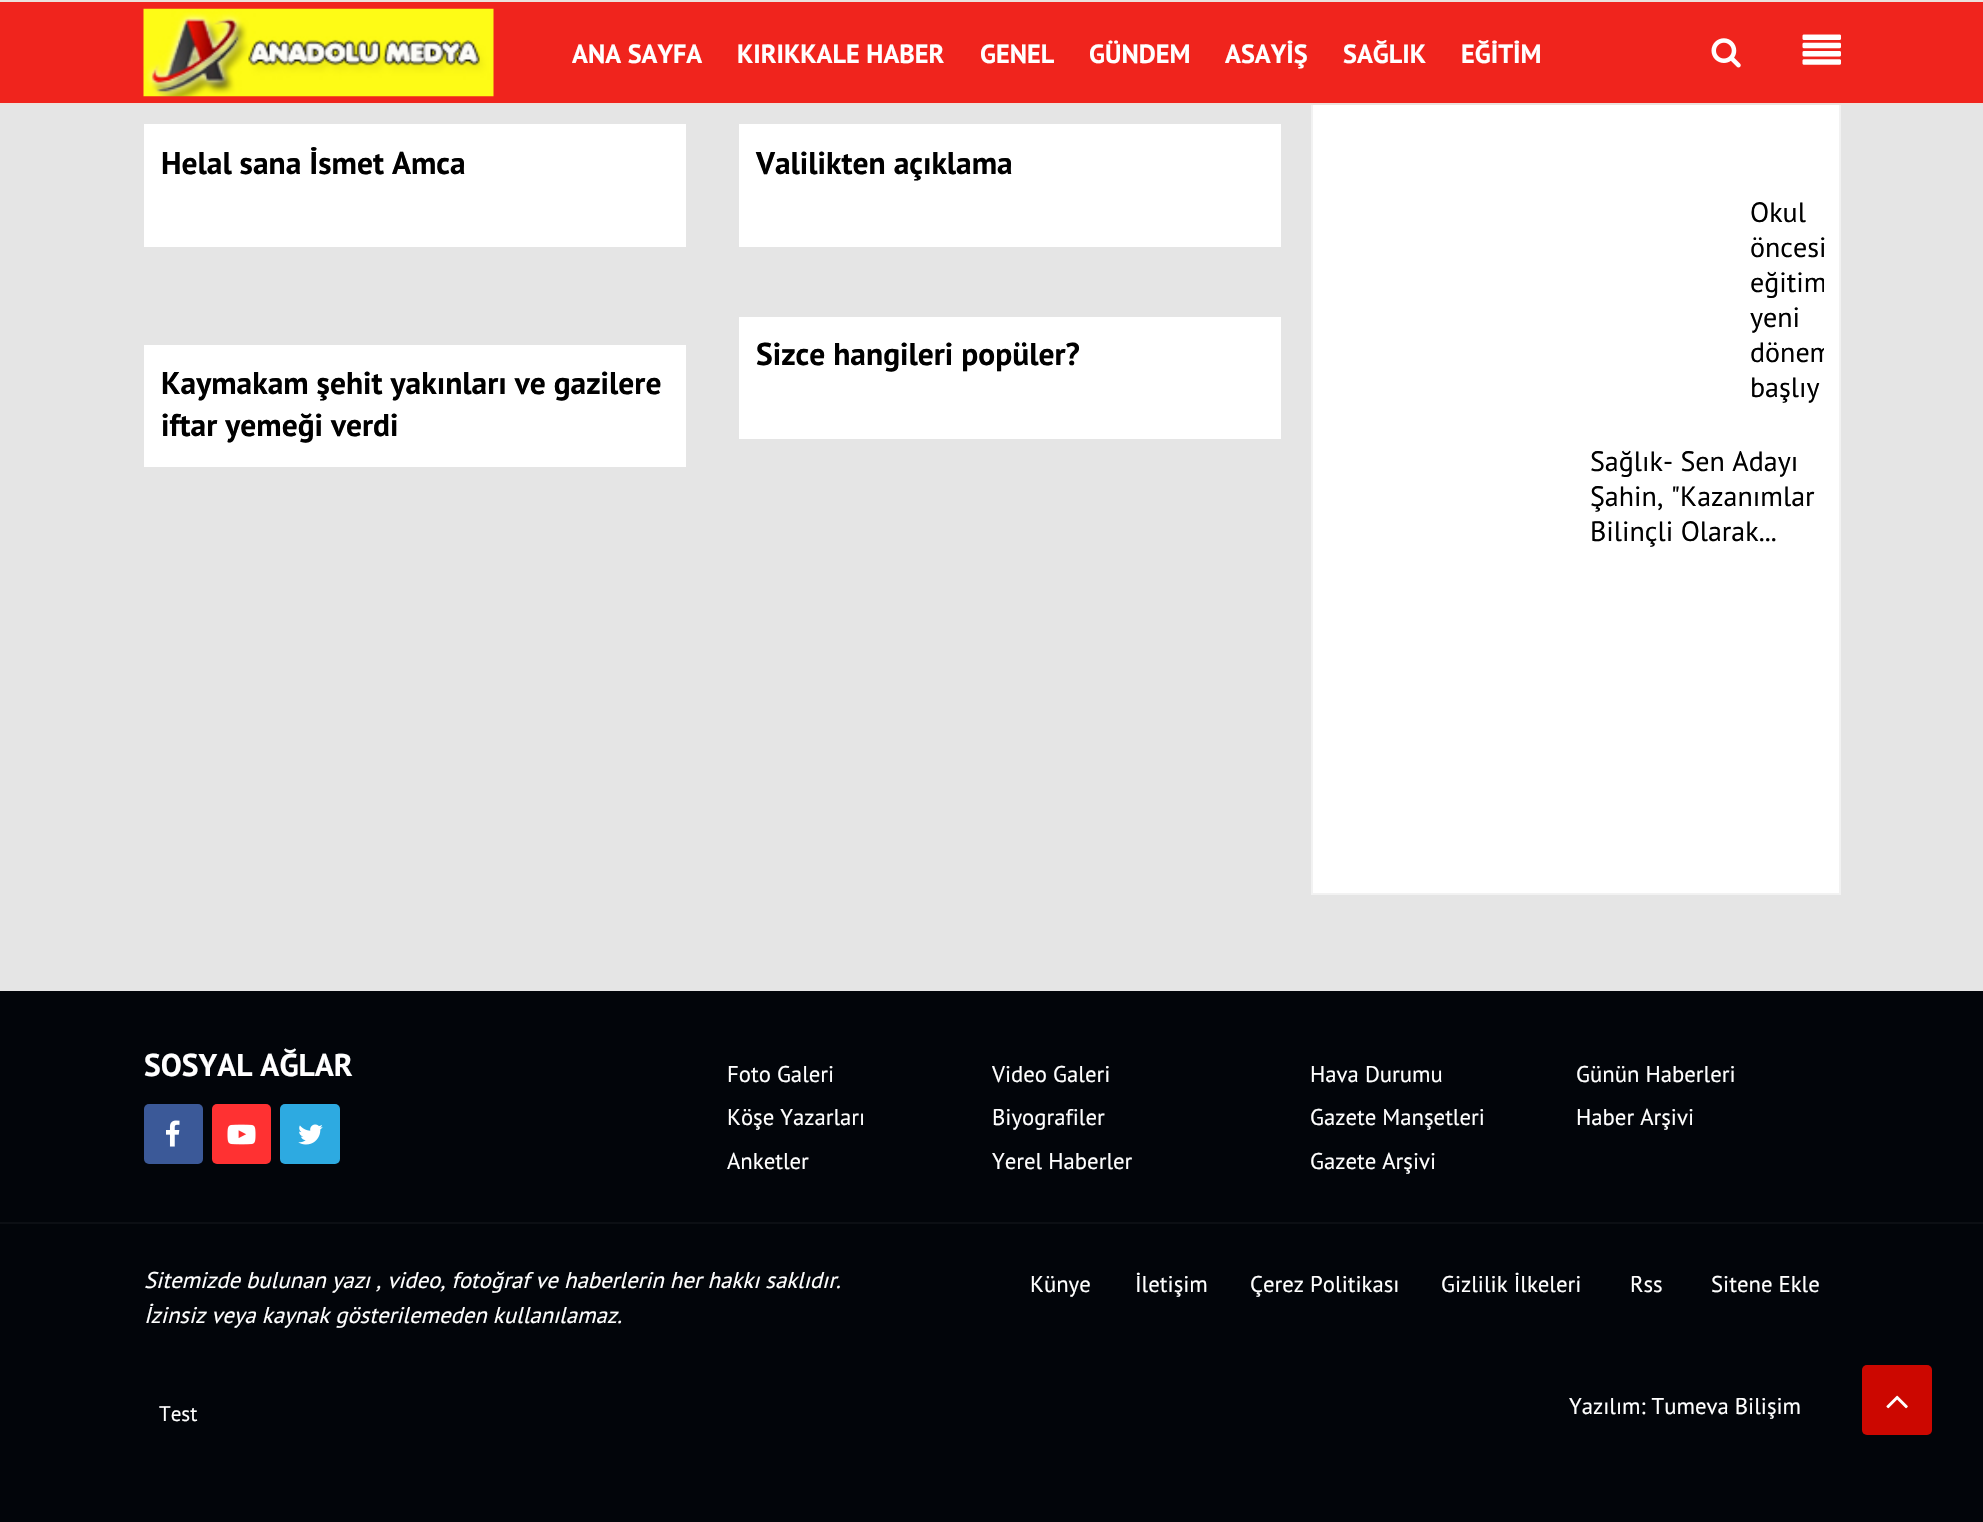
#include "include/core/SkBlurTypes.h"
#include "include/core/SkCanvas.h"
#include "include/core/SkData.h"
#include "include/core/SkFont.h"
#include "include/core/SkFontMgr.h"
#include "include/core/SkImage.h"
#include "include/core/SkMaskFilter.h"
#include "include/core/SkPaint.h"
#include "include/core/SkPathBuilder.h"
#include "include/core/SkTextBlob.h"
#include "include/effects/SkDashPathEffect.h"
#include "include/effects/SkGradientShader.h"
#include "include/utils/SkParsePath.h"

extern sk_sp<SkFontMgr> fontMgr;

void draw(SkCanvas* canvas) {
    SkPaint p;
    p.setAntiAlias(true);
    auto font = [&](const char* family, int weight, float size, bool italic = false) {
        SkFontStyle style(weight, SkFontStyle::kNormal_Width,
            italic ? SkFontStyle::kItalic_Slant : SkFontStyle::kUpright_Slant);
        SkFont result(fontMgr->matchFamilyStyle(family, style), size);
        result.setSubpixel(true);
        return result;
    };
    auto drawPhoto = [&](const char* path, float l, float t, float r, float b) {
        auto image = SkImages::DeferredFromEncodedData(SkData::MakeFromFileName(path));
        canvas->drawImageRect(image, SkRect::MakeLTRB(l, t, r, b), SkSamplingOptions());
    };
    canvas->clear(0xFF02050A);
    {
        const struct { float l, t, r, b; SkColor color; } items[] = {
            {0, 105, 1983, 991, 0xFFE5E5E5},
            {0, 2, 1983, 103, 0xFFF0241D},
            {0, 0, 1983, 2, 0xFFEBE2DD},
            {0, 103, 1983, 105, 0xFFEBE2DD},
        };
        for (auto [l, t, r, b, color] : items) {
            p.setColor(color);
            canvas->drawRect(SkRect::MakeLTRB(l, t, r, b), p);
        }
    }
    drawPhoto("media/1.png", 143, 8, 494, 97);
    auto font1 = font("PT Sans", 700, 26.25f);
    p.setColor(0xFFFFFFFF);
    {
        const struct { const char* s; float x, y; } items[] = {
            {"ANA SAYFA", 572, 63},
            {"KIRIKKALE HABER", 737, 63},
            {"GENEL", 980, 63},
            {"GÜNDEM", 1089, 63},
            {"ASAYİŞ", 1225, 63},
            {"SAĞLIK", 1343, 63},
            {"EĞİTİM", 1461, 63},
        };
        for (auto [s, x, y] : items) {
            canvas->drawString(s, x, y, font1, p);
        }
    }
    drawPhoto("media/2.png", 1711, 38, 1741, 68);
    drawPhoto("media/3.png", 1802, 34, 1841, 65);
    canvas->drawRect(SkRect::MakeLTRB(144, 124, 686, 247), p);
    auto font2 = font("PT Sans", 700, 31.5f);
    p.setColor(0xFF000000);
    canvas->drawString("Helal sana İsmet Amca", 161, 174, font2, p);
    p.setColor(0xFFFFFFFF);
    canvas->drawRect(SkRect::MakeLTRB(739, 124, 1281, 247), p);
    p.setColor(0xFF000000);
    canvas->drawString("Valilikten açıklama", 756, 174, font2, p);
    p.setColor(0xFFFFFFFF);
    canvas->drawRect(SkRect::MakeLTRB(739, 317, 1281, 439), p);
    p.setColor(0xFF000000);
    canvas->drawString("Sizce hangileri popüler?", 756, 365, font2, p);
    p.setColor(0xFFFFFFFF);
    canvas->drawRect(SkRect::MakeLTRB(144, 345, 686, 467), p);
    p.setColor(0xFF000000);
    canvas->drawString("Kaymakam şehit yakınları ve gazilere", 161, 394, font2, p);
    canvas->drawString("iftar yemeği verdi", 161, 436, font2, p);
    {
        const struct { float l, t, r, b; SkColor color; } items[] = {
            {1313, 105, 1839, 893, 0xFFFFFFFF},
            {1839, 105, 1841, 894, 0xFFF2F2F2},
            {1311, 893, 1841, 895, 0xFFF2F2F2},
            {1311, 105, 1313, 894, 0xFFF2F2F2},
        };
        for (auto [l, t, r, b, color] : items) {
            p.setColor(color);
            canvas->drawRect(SkRect::MakeLTRB(l, t, r, b), p);
        }
    }
    auto font3 = font("PT Sans", 400, 28);
    p.setColor(0xFF000000);
    canvas->drawString("Okul", 1750, 222, font3, p);
    canvas->drawString("öncesi", 1750, 257, font3, p);
    canvas->save();
    canvas->clipRect(SkRect::MakeLTRB(1750, 194, 1824, 404));
    canvas->drawString("eğitim", 1750, 292, font3, p);
    canvas->restore();
    canvas->drawString("yeni", 1750, 327, font3, p);
    canvas->save();
    canvas->clipRect(SkRect::MakeLTRB(1750, 194, 1824, 404));
    canvas->drawString("dönem", 1750, 362, font3, p);
    canvas->restore();
    {
        const struct { const char* s; float x, y; } items[] = {
            {"başlıy", 1750, 397},
            {"Sağlık- Sen Adayı", 1590, 471},
            {"Şahin, \"Kazanımlar", 1590, 506},
            {"Bilinçli Olarak...", 1590, 541},
        };
        for (auto [s, x, y] : items) {
            canvas->drawString(s, x, y, font3, p);
        }
    }
    p.setColor(0xFFFFFFFF);
    canvas->drawString("SOSYAL AĞLAR", 144, 1076, font2, p);
    p.setColor(0xFF3B5998);
    canvas->drawRoundRect(SkRect::MakeLTRB(144, 1104, 203, 1164), 5, 5, p);
    drawPhoto("media/4.png", 166, 1120, 180, 1147);
    p.setColor(0xFFFF3132);
    canvas->drawRoundRect(SkRect::MakeLTRB(212, 1104, 271, 1164), 5, 5, p);
    drawPhoto("media/5.png", 227, 1124, 256, 1145);
    p.setColor(0xFF2DAAE1);
    canvas->drawRoundRect(SkRect::MakeLTRB(280, 1104, 340, 1164), 5, 5, p);
    drawPhoto("media/6.png", 298, 1124, 323, 1145);
    auto font4 = font("PT Sans", 400, 22.75f);
    p.setColor(0xFFFFFFFF);
    {
        const struct { const char* s; float x, y; } items[] = {
            {"Foto Galeri", 727, 1082},
            {"Video Galeri", 992, 1082},
            {"Köşe Yazarları", 727, 1125},
            {"Biyografiler", 992, 1125},
            {"Anketler", 727, 1169},
            {"Yerel Haberler", 992, 1169},
            {"Hava Durumu", 1310, 1082},
            {"Günün Haberleri", 1576, 1082},
            {"Gazete Manşetleri", 1310, 1125},
            {"Haber Arşivi", 1576, 1125},
            {"Gazete Arşivi", 1310, 1169},
        };
        for (auto [s, x, y] : items) {
            canvas->drawString(s, x, y, font4, p);
        }
    }
    p.setColor(0xFF0C0F14);
    canvas->drawRect(SkRect::MakeLTRB(0, 1222, 1983, 1224), p);
    auto font5 = font("PT Sans", 400, 22.75f, true);
    p.setColor(0xFFFFFFFF);
    canvas->drawString("Sitemizde bulunan yazı , video, fotoğraf ve haberlerin her hakkı saklıdır.", 144, 1288, font5, p);
    canvas->drawString("İzinsiz veya kaynak gösterilemeden kullanılamaz.", 144, 1323, font5, p);
    {
        const struct { const char* s; float x, y; } items[] = {
            {"Künye", 1030, 1292},
            {"İletişim", 1135, 1292},
            {"Çerez Politikası", 1250, 1292},
            {"Gizlilik İlkeleri", 1441, 1292},
            {"Rss", 1630, 1292},
            {"Sitene Ekle", 1711, 1292},
        };
        for (auto [s, x, y] : items) {
            canvas->drawString(s, x, y, font4, p);
        }
    }
    auto font6 = font("PT Sans", 400, 21);
    canvas->drawString("Test", 159, 1421, font6, p);
    canvas->drawString("Yazılım: Tumeva Bilişim", 1569, 1414, font4, p);
    p.setColor(0xFFCC0700);
    canvas->drawRoundRect(SkRect::MakeLTRB(1862, 1365, 1932, 1435), 5, 5, p);
    drawPhoto("media/7.png", 1886, 1395, 1908, 1409);
}
